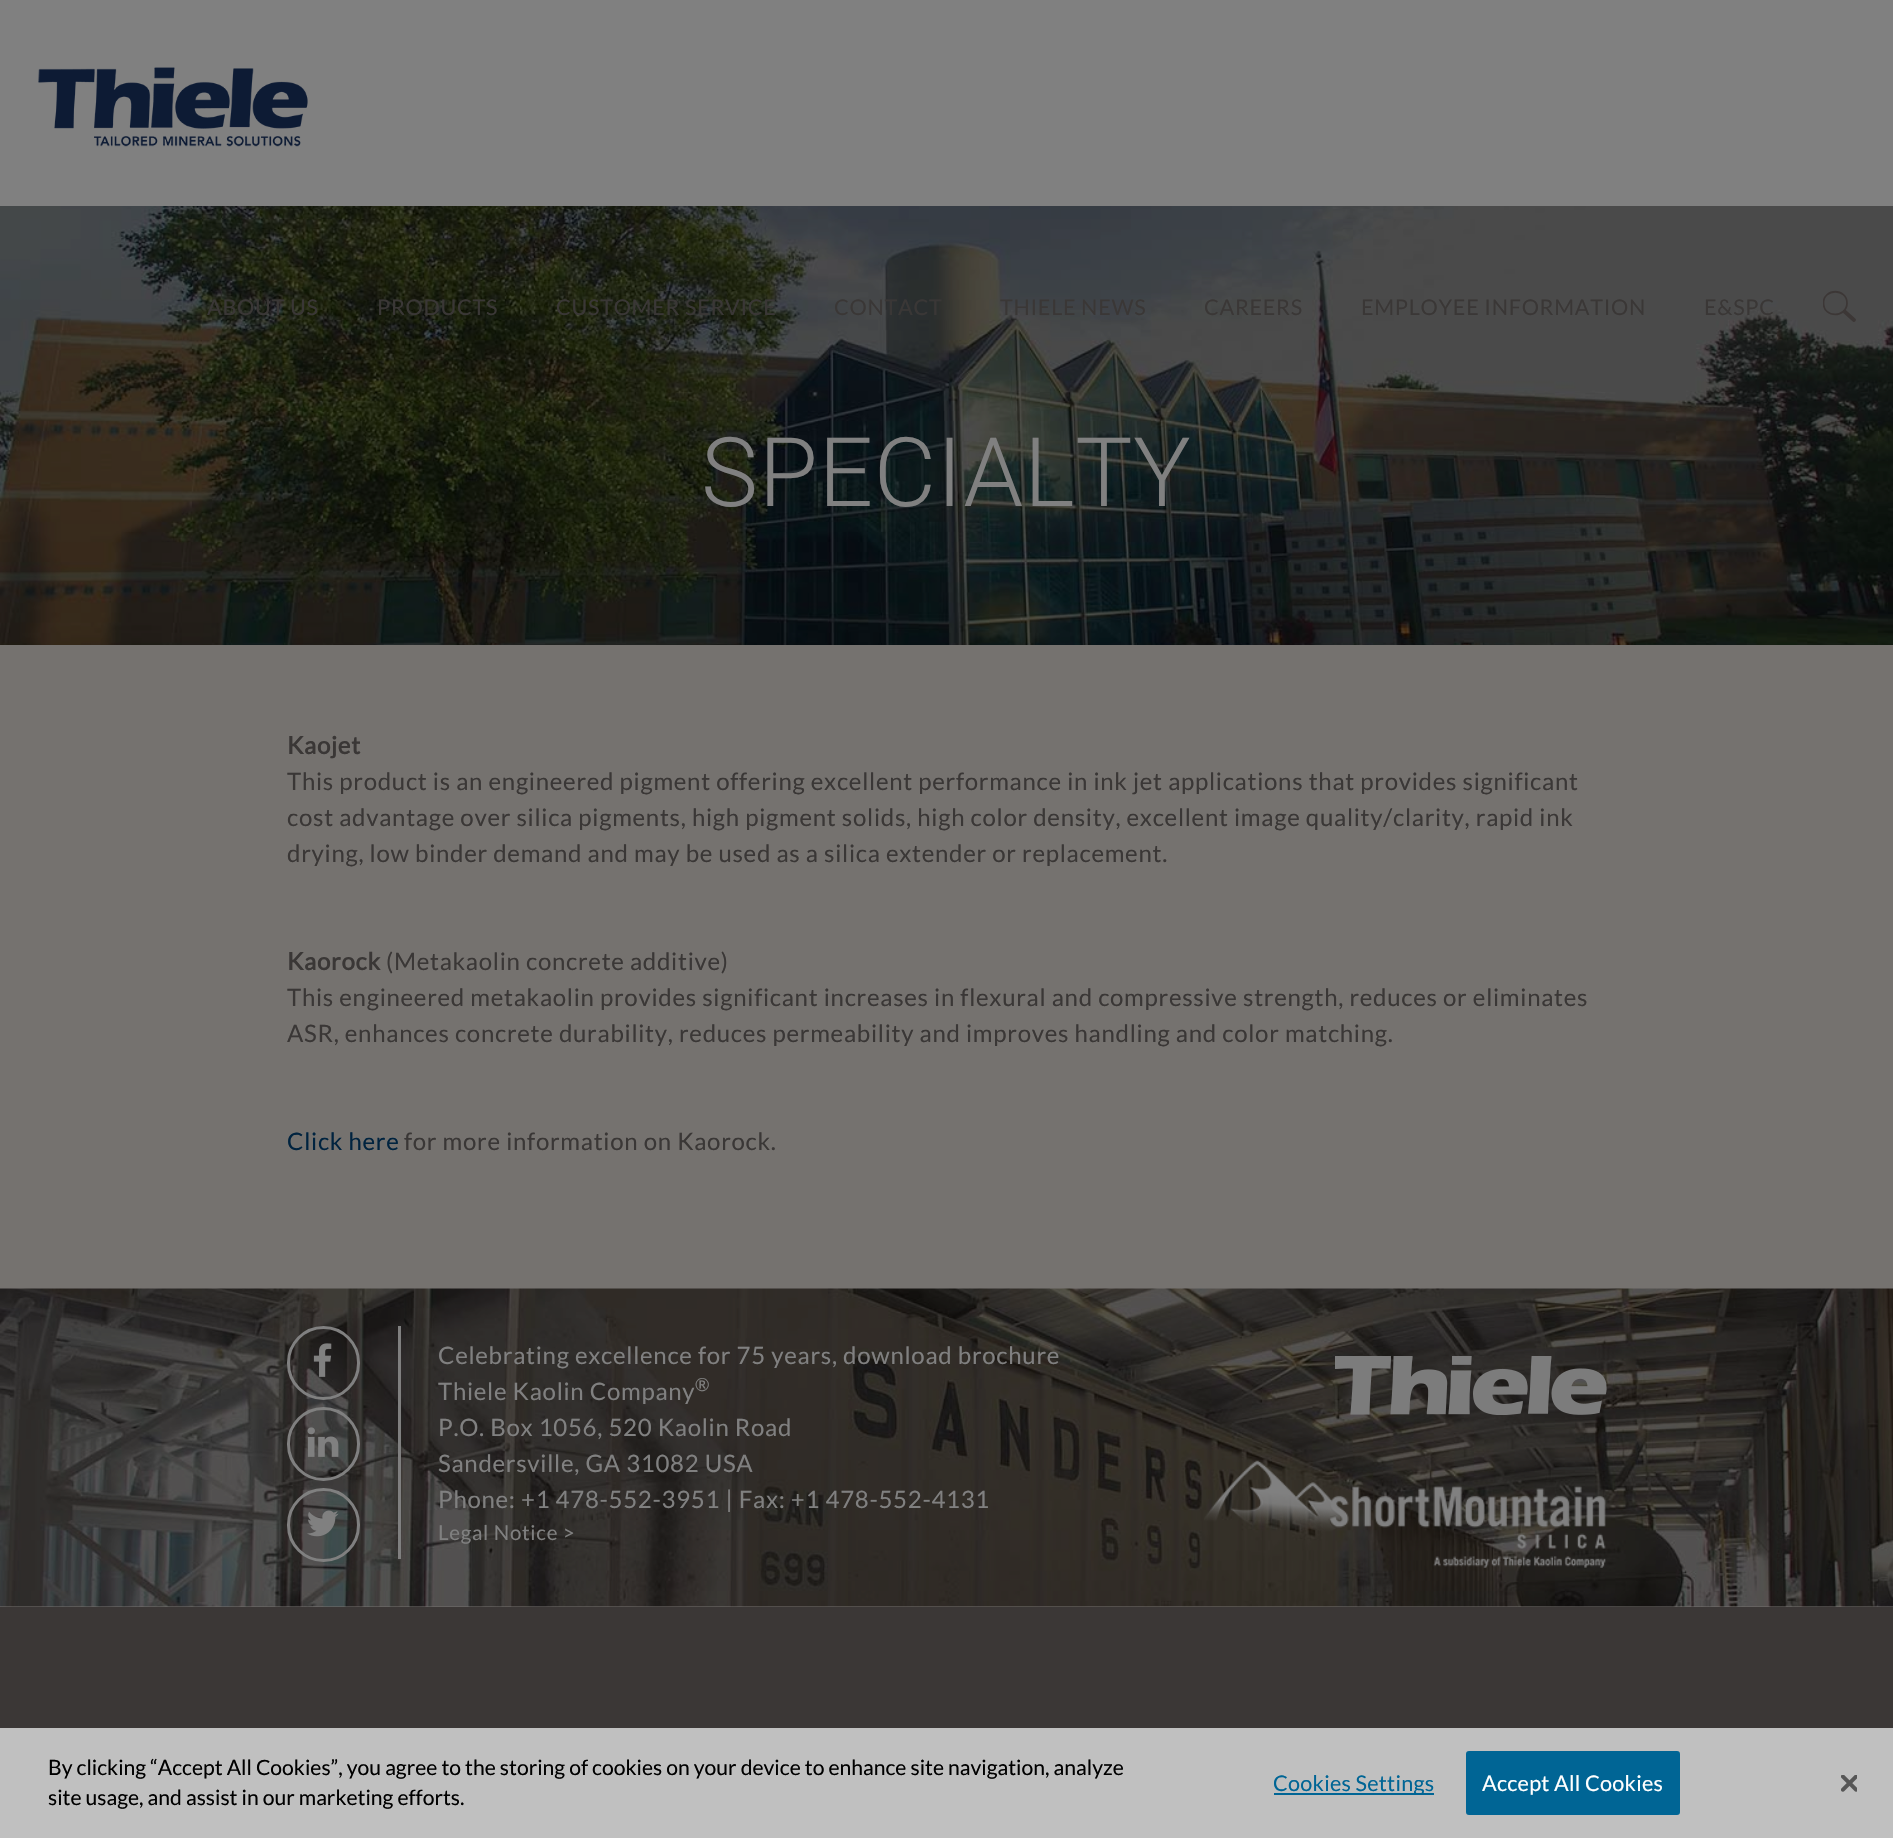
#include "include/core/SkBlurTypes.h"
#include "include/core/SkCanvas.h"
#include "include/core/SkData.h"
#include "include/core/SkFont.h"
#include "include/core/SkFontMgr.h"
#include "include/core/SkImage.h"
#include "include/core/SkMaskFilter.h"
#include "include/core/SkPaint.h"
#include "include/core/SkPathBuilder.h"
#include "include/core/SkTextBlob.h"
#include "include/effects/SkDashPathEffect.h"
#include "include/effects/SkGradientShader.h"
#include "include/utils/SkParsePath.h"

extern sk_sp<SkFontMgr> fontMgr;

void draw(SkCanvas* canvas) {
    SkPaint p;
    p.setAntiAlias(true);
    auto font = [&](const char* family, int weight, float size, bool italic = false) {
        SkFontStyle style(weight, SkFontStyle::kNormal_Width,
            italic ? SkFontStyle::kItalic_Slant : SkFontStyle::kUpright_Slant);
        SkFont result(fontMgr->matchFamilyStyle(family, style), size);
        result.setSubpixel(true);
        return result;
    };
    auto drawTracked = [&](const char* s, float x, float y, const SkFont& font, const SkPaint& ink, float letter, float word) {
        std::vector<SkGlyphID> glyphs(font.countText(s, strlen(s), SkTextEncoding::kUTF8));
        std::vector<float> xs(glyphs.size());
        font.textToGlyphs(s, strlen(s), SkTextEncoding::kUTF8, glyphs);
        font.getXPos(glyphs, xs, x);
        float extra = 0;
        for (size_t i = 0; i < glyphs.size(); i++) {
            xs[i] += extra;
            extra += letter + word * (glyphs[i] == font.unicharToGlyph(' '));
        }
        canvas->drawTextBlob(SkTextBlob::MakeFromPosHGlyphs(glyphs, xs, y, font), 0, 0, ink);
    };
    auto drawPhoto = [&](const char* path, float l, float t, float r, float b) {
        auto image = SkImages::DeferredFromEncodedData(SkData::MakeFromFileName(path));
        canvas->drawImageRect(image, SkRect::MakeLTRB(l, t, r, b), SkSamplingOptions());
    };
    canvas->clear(0xFF3B3736);
    p.setColor(0xFF808080);
    canvas->drawRect(SkRect::MakeLTRB(0, 0, 1893, 206), p);
    drawPhoto("media/1.png", 38, 67, 308, 147);
    drawPhoto("media/2.png", 0, 206, 1893, 645);
    auto font1 = font("Lato", 400, 21.6f);
    p.setColor(0xFF3A3736);
    {
        const struct { const char* s; float x, y; } items[] = {
            {"ABOUT US", 207, 315},
            {"PRODUCTS", 377, 315},
            {"CUSTOMER SERVICE", 556, 315},
            {"CONTACT", 834, 315},
            {"THIELE NEWS", 1000, 315},
            {"CAREERS", 1204, 315},
            {"EMPLOYEE INFORMATION", 1361, 315},
            {"E&SPC", 1704, 315},
        };
        for (auto [s, x, y] : items) {
            drawTracked(s, x, y, font1, p, 0.72f, 0);
        }
    }
    p.setStyle(SkPaint::kStroke_Style);
    p.setStrokeWidth(3.9f);
    p.setStrokeCap(SkPaint::kRound_Cap);
    p.setColor(0xFF3C3736);
    canvas->drawPath(SkPathBuilder().moveTo(1854, 320).lineTo(1844.5f, 311.5f).detach(), p);
    canvas->save();
    canvas->clipRect(SkRect::MakeLTRB(1823, 288, 1856, 323));
    p.setStrokeWidth(1.8f);
    p.setStrokeCap(SkPaint::kButt_Cap);
    canvas->drawPath(SkPathBuilder().moveTo(1847, 303).cubicTo(1847, 318, 1823.5f, 318.5f, 1823.5f, 303).cubicTo(1823.5f, 288, 1847, 288, 1847, 303).close().detach(), p);
    canvas->restore();
    p.setStyle(SkPaint::kFill_Style);
    p.setColor(0xFF75726F);
    canvas->drawRect(SkRect::MakeLTRB(0, 645, 1893, 1607), p);
    auto font2 = font("Roboto", 300, 96);
    p.setColor(0xFF808080);
    drawTracked("SPECIALTY", 701, 506, font2, p, 0.72f, 0);
    auto font3 = font("Lato", 700, 24);
    p.setColor(0xFF3A3736);
    drawTracked("Kaojet", 287, 754, font3, p, 0.72f, 0);
    auto font4 = font("Lato", 400, 24);
    {
        const struct { const char* s; float x, y; } items[] = {
            {"This product is an engineered pigment offering excellent performance in ink jet applications that provides significant", 287, 790},
            {"cost advantage over silica pigments, high pigment solids, high color density, excellent image quality/clarity, rapid ink", 287, 826},
            {"drying, low binder demand and may be used as a silica extender or replacement.", 287, 862},
        };
        for (auto [s, x, y] : items) {
            drawTracked(s, x, y, font4, p, 0.72f, 0);
        }
    }
    drawTracked("Kaorock", 287, 970, font3, p, 0.72f, 0);
    {
        const struct { const char* s; float x, y; } items[] = {
            {"(Metakaolin concrete additive)", 386, 970},
            {"This engineered metakaolin provides significant increases in flexural and compressive strength, reduces or eliminates", 287, 1006},
            {"ASR, enhances concrete durability, reduces permeability and improves handling and color matching.", 287, 1042},
        };
        for (auto [s, x, y] : items) {
            drawTracked(s, x, y, font4, p, 0.72f, 0);
        }
    }
    p.setColor(0xFF00233F);
    drawTracked("Click here", 287, 1150, font4, p, 0.72f, 0);
    p.setColor(0xFF3A3736);
    drawTracked("for more information on Kaorock.", 404, 1150, font4, p, 0.72f, 0);
    drawPhoto("media/3.png", 0, 1288, 1893, 1607);
    p.setStyle(SkPaint::kStroke_Style);
    p.setStrokeWidth(3);
    p.setColor(0xFF808080);
    canvas->drawRoundRect(SkRect::MakeLTRB(288.5f, 1327.5f, 358.5f, 1398.5f), 35, 35, p);
    drawPhoto("media/4.png", 313, 1343, 332, 1377);
    canvas->drawRoundRect(SkRect::MakeLTRB(288.5f, 1408.5f, 358.5f, 1479.5f), 35, 35, p);
    drawPhoto("media/5.png", 307, 1427, 339, 1457);
    canvas->drawRoundRect(SkRect::MakeLTRB(288.5f, 1489.5f, 358.5f, 1560.5f), 35, 35, p);
    drawPhoto("media/6.png", 307, 1510, 339, 1537);
    p.setStyle(SkPaint::kFill_Style);
    canvas->drawRect(SkRect::MakeLTRB(398, 1326, 401, 1559), p);
    drawTracked("Celebrating excellence for 75 years, download brochure", 438, 1364, font4, p, 0.72f, 0);
    drawTracked("Thiele Kaolin Company", 438, 1400, font4, p, 0.72f, 0);
    auto font5 = font("Lato", 400, 18);
    drawTracked("®", 695, 1391, font5, p, 0.72f, 0);
    {
        const struct { const char* s; float x, y; } items[] = {
            {"P.O. Box 1056, 520 Kaolin Road", 438, 1436},
            {"Sandersville, GA 31082 USA", 438, 1472},
            {"Phone: +1 478-552-3951 | Fax: +1 478-552-4131", 438, 1508},
        };
        for (auto [s, x, y] : items) {
            drawTracked(s, x, y, font4, p, 0.72f, 0);
        }
    }
    auto font6 = font("Lato", 400, 20.5f);
    drawTracked("Legal Notice >", 438, 1540, font6, p, 0.72f, 0);
    drawPhoto("media/7.png", 1335, 1356, 1607, 1415);
    drawPhoto("media/8.png", 1204, 1460, 1606, 1568);
    p.setColor(0xFFC0C0C0);
    canvas->drawRect(SkRect::MakeLTRB(0, 1728, 1893, 1838), p);
    auto font7 = font("Lato", 400, 21.12f);
    p.setColor(0xFF000000);
    canvas->drawString("By clicking “Accept All Cookies”, you agree to the storing of cookies on your device to enhance site navigation, analyze", 48, 1775, font7, p);
    canvas->drawString("site usage, and assist in our marketing efforts.", 48, 1805, font7, p);
    p.setColor(0xFF006595);
    canvas->drawRect(SkRect::MakeLTRB(1274, 1793, 1434, 1795), p);
    drawTracked("Cookies Settings", 1273, 1791, font1, p, 0.25f, 0);
    canvas->drawRoundRect(SkRect::MakeLTRB(1467, 1752, 1679, 1814), 2, 2, p);
    p.setStyle(SkPaint::kStroke_Style);
    p.setStrokeWidth(2);
    canvas->drawRoundRect(SkRect::MakeLTRB(1467, 1752, 1679, 1814), 2, 2, p);
    p.setStyle(SkPaint::kFill_Style);
    p.setColor(0xFFFFFFFF);
    drawTracked("Accept All Cookies", 1482, 1791, font1, p, 0.25f, 0);
    drawPhoto("media/9.png", 1841, 1775, 1857, 1792);
}
